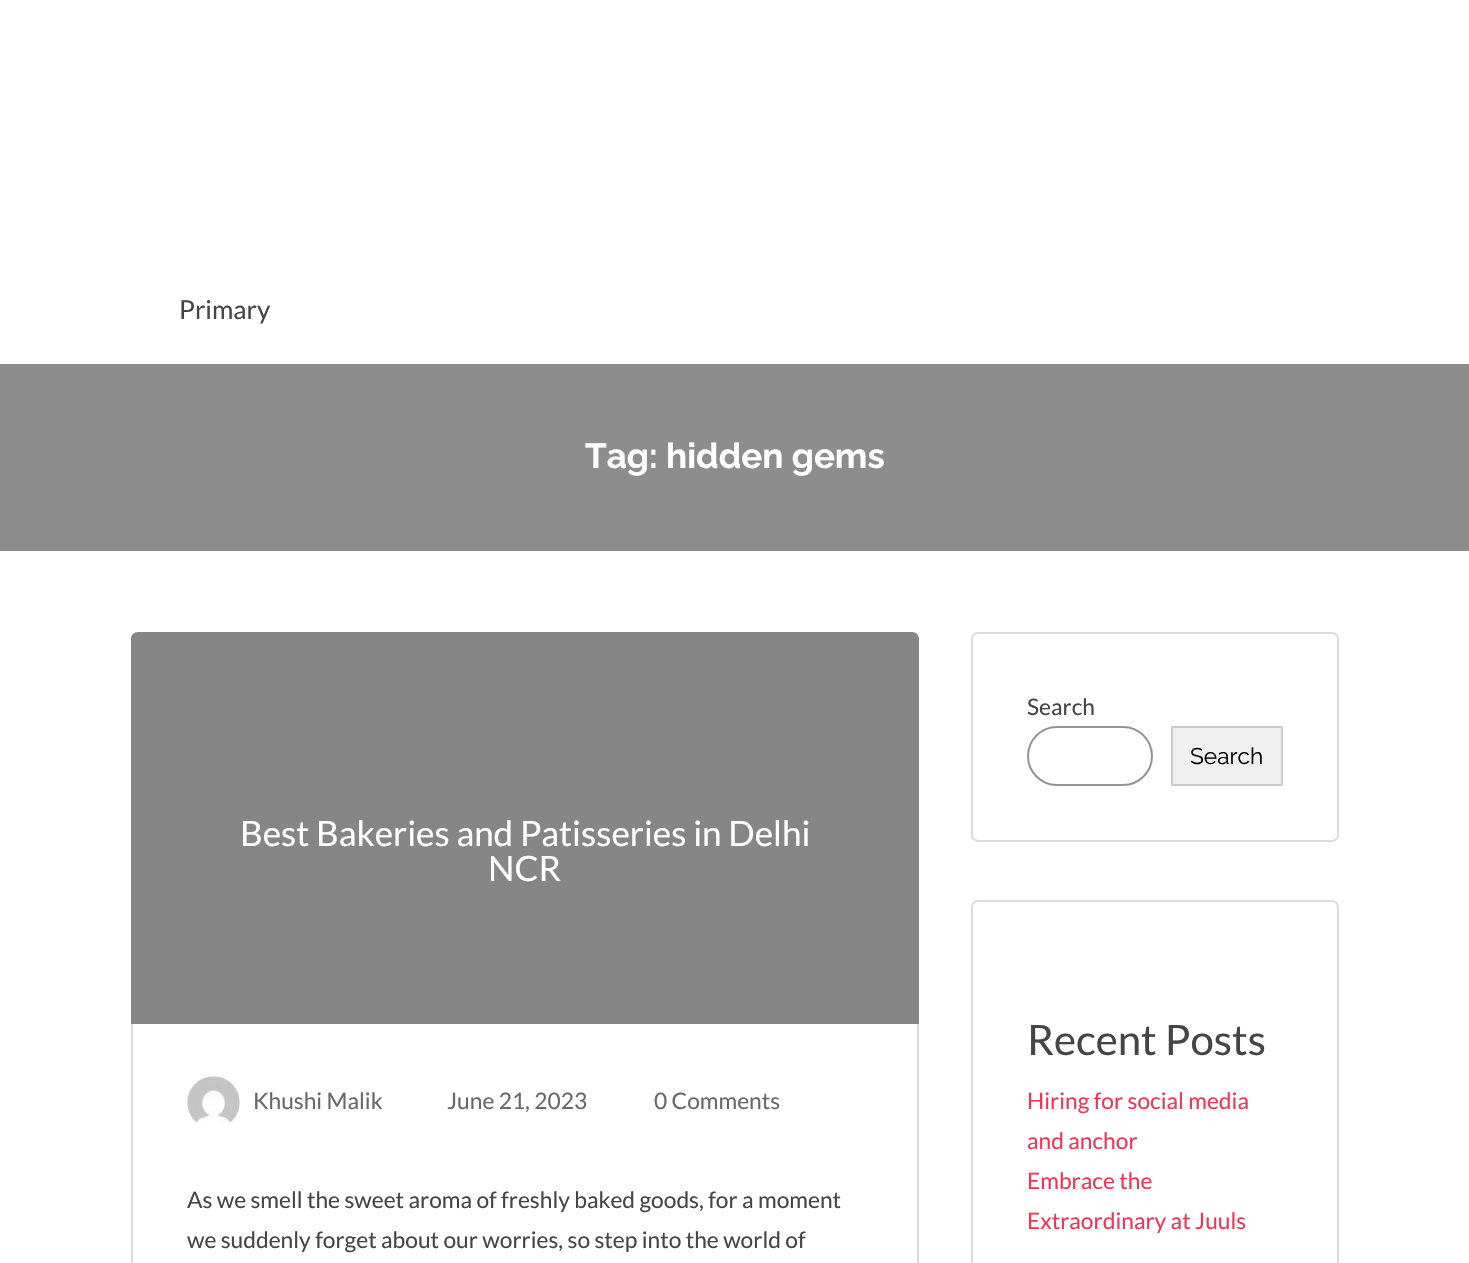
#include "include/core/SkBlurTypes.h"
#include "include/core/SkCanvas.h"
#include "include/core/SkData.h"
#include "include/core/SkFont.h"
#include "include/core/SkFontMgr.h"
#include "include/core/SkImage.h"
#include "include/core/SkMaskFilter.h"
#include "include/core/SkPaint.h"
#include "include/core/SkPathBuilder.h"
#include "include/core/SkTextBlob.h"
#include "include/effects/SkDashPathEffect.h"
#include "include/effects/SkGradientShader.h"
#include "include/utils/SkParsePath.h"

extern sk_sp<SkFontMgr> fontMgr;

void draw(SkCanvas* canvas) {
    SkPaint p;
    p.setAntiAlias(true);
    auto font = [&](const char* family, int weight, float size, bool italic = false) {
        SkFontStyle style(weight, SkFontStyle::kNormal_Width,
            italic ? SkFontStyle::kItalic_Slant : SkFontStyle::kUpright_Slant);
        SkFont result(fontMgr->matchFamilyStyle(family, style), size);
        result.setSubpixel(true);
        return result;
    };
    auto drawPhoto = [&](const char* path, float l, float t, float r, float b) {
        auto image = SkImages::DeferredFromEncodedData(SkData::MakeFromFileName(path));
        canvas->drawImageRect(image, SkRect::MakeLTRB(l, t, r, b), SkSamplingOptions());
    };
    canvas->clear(0xFFFFFFFF);
    auto font1 = font("Lato", 400, 26);
    p.setColor(0xFF454545);
    canvas->drawString("Primary", 179, 319, font1, p);
    p.setColor(0xFF8D8D8D);
    canvas->drawRect(SkRect::MakeLTRB(0, 364, 1469, 551), p);
    auto font2 = font("Raleway", 700, 35);
    p.setColor(0xFFFFFFFF);
    canvas->drawString("Tag: hidden gems", 585, 468, font2, p);
    p.setStyle(SkPaint::kStroke_Style);
    p.setStrokeWidth(2);
    p.setColor(0xFFDCDCDC);
    canvas->drawRoundRect(SkRect::MakeLTRB(132, 633, 918, 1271), 6, 6, p);
    p.setStyle(SkPaint::kFill_Style);
    p.setColor(0xFFF5F5F5);
    canvas->drawPath(SkPathBuilder().moveTo(138, 632).lineTo(912, 632).cubicTo(916, 632, 919, 635, 919, 639).lineTo(919, 1024).lineTo(131, 1024).lineTo(131, 639).cubicTo(131, 635, 134, 632, 138, 632).close().detach(), p);
    p.setColor(0x73000000);
    canvas->drawPath(SkPathBuilder().moveTo(138, 632).lineTo(912, 632).cubicTo(916, 632, 919, 635, 919, 639).lineTo(919, 1024).lineTo(131, 1024).lineTo(131, 639).cubicTo(131, 635, 134, 632, 138, 632).close().detach(), p);
    auto font3 = font("Lato", 400, 35);
    p.setColor(0xFFFFFFFF);
    canvas->drawString("Best Bakeries and Patisseries in Delhi", 240, 846, font3, p);
    canvas->drawString("NCR", 488, 881, font3, p);
    drawPhoto("media/1.png", 187, 1076, 240, 1125);
    auto font4 = font("Lato", 400, 22.75f);
    p.setColor(0xFF686868);
    {
        const struct { const char* s; float x, y; } items[] = {
            {"Khushi Malik", 253, 1109},
            {"June 21, 2023", 447, 1109},
            {"0 Comments", 654, 1109},
        };
        for (auto [s, x, y] : items) {
            canvas->drawString(s, x, y, font4, p);
        }
    }
    p.setColor(0xFF454545);
    canvas->drawString("As we smell the sweet aroma of freshly baked goods, for a moment", 187, 1208, font4, p);
    canvas->drawString("we suddenly forget about our worries, so step into the world of", 187, 1248, font4, p);
    p.setStyle(SkPaint::kStroke_Style);
    p.setColor(0xFFDCDCDC);
    canvas->drawRoundRect(SkRect::MakeLTRB(972, 633, 1338, 841), 6, 6, p);
    p.setStyle(SkPaint::kFill_Style);
    p.setColor(0xFF454545);
    canvas->drawString("Search", 1027, 715, font4, p);
    p.setStyle(SkPaint::kStroke_Style);
    p.setColor(0xFF949494);
    canvas->drawRoundRect(SkRect::MakeLTRB(1028, 727, 1152, 785), 29, 29, p);
    p.setStyle(SkPaint::kFill_Style);
    p.setColor(0xFFEFEFEF);
    canvas->drawRect(SkRect::MakeLTRB(1172, 727, 1282, 785), p);
    p.setStyle(SkPaint::kStroke_Style);
    p.setColor(0xFFCCCCCC);
    canvas->drawRect(SkRect::MakeLTRB(1172, 727, 1282, 785), p);
    auto font5 = font("Raleway", 400, 22.75f);
    p.setStyle(SkPaint::kFill_Style);
    p.setColor(0xFF000000);
    canvas->drawString("Search", 1190, 764, font5, p);
    p.setStyle(SkPaint::kStroke_Style);
    p.setColor(0xFFDCDCDC);
    canvas->drawRoundRect(SkRect::MakeLTRB(972, 901, 1338, 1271), 6, 6, p);
    auto font6 = font("Lato", 400, 42);
    p.setStyle(SkPaint::kFill_Style);
    p.setColor(0xFF454545);
    canvas->drawString("Recent Posts", 1027, 1055, font6, p);
    p.setColor(0xFFEF3652);
    {
        const struct { const char* s; float x, y; } items[] = {
            {"Hiring for social media", 1027, 1109},
            {"and anchor", 1027, 1149},
            {"Embrace the", 1027, 1189},
            {"Extraordinary at Juuls", 1027, 1229},
        };
        for (auto [s, x, y] : items) {
            canvas->drawString(s, x, y, font4, p);
        }
    }
}
